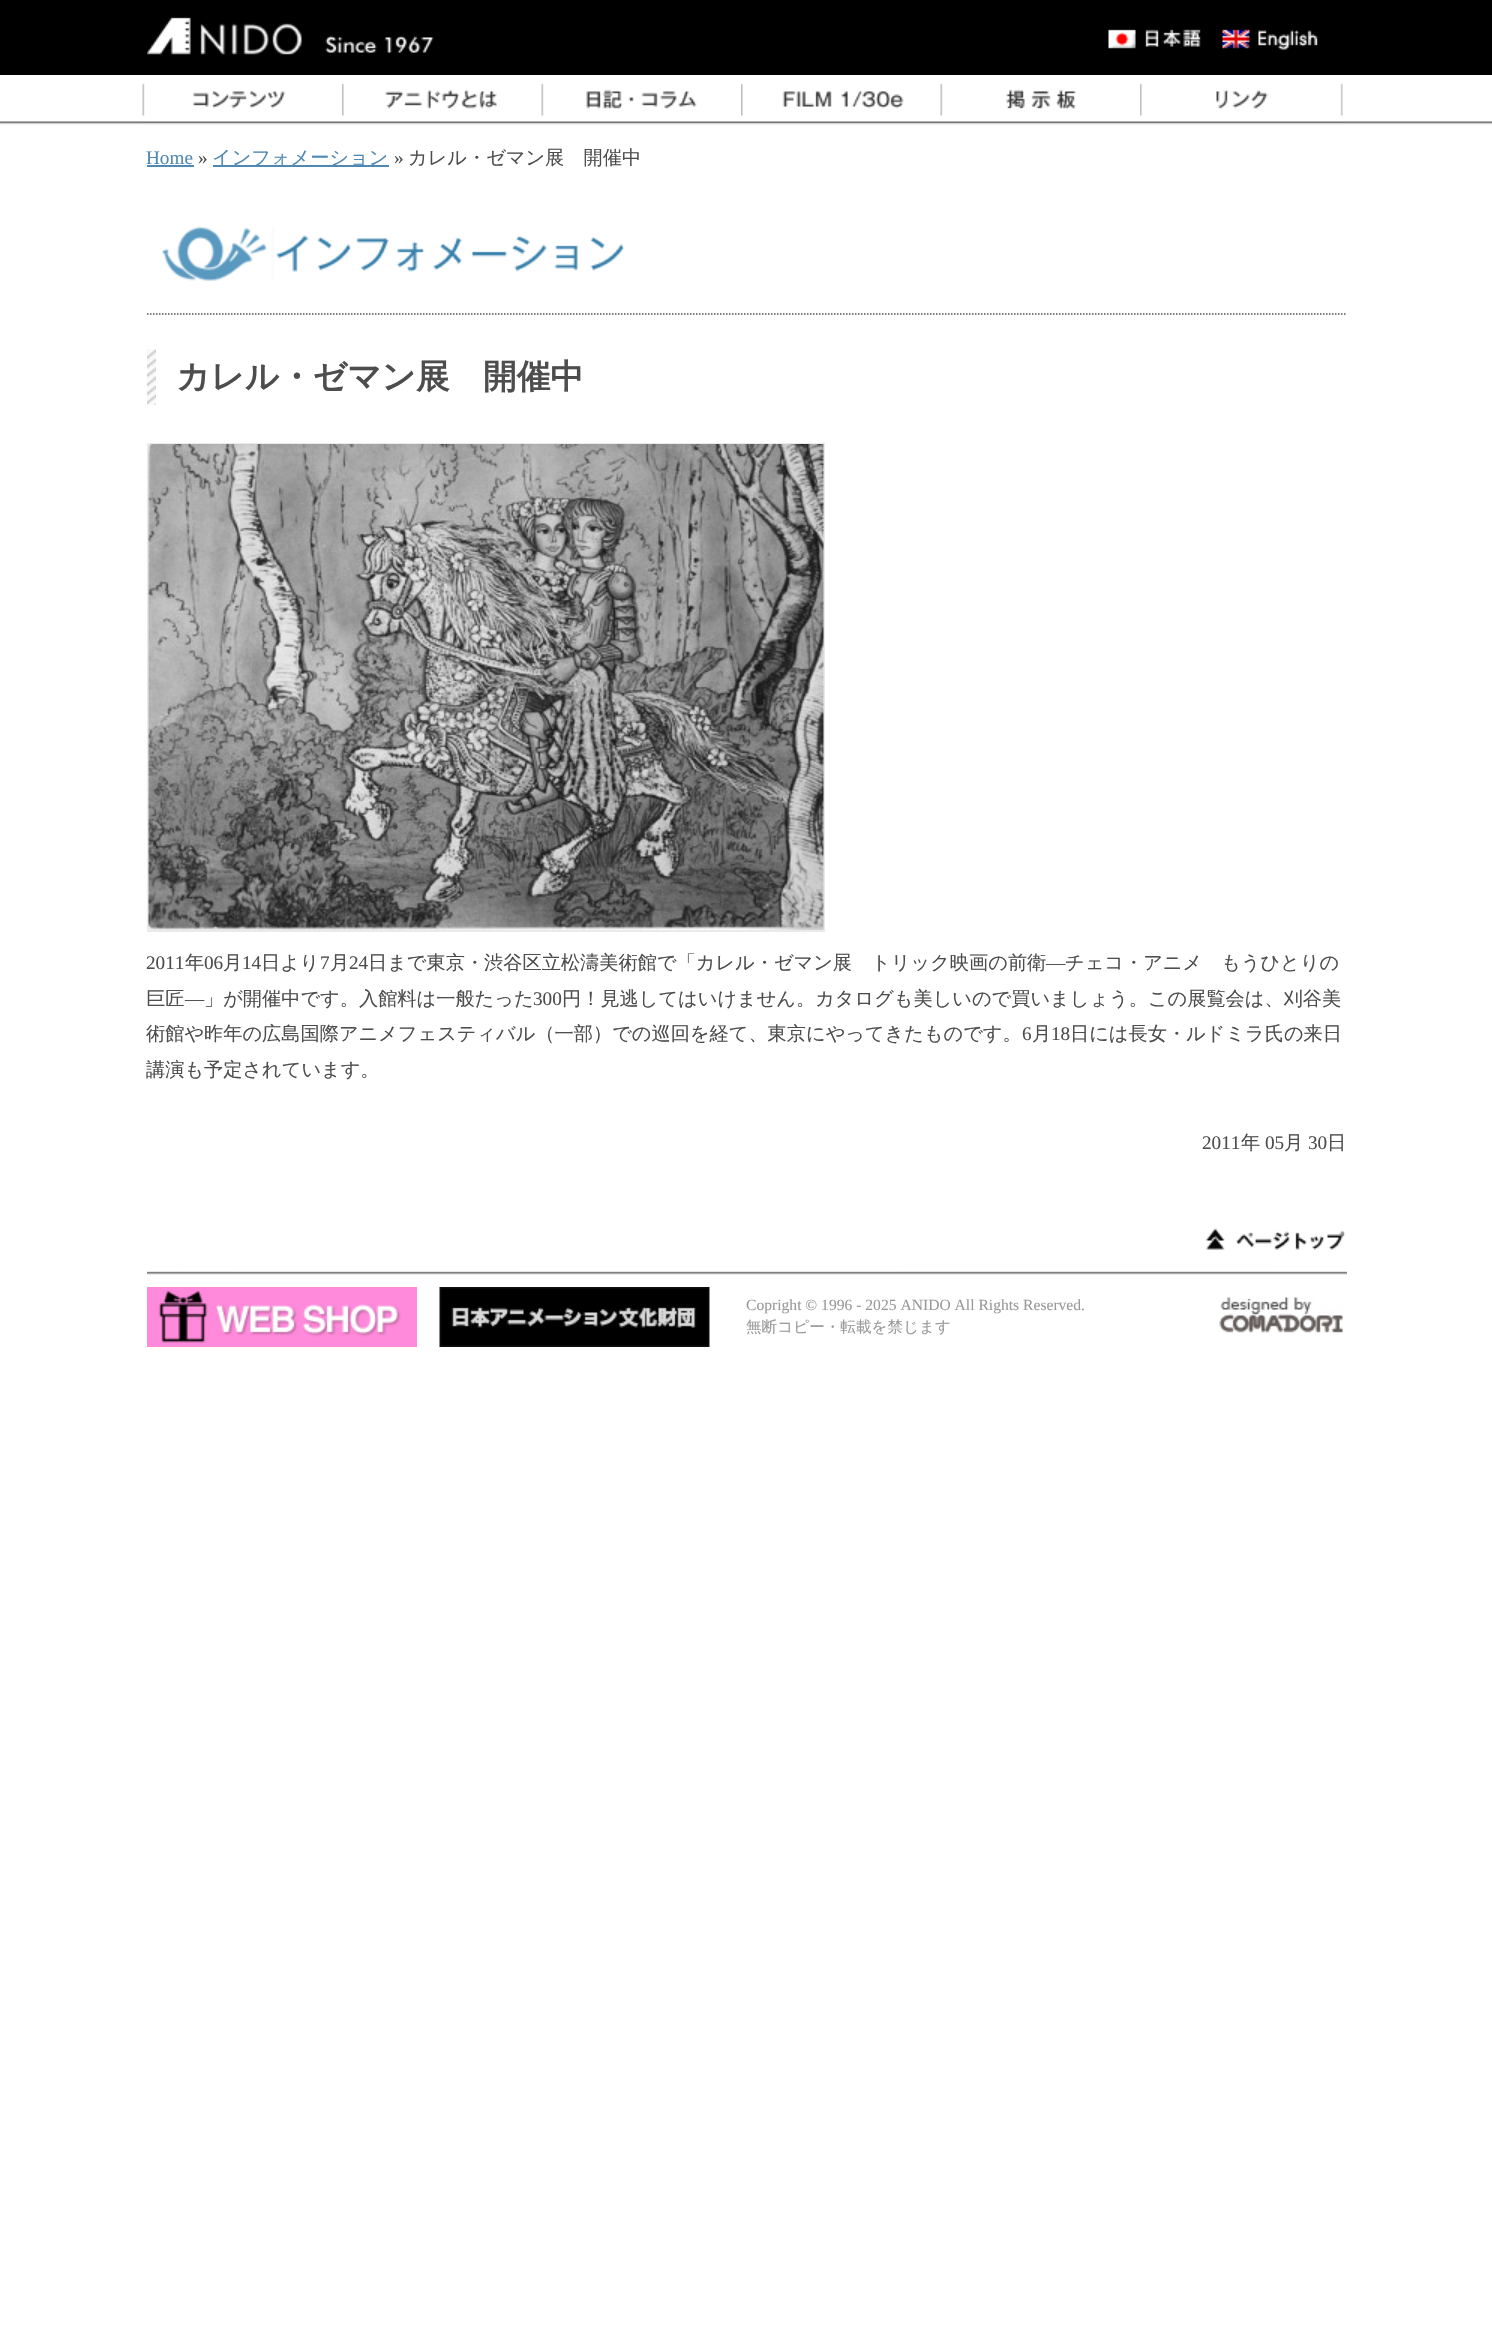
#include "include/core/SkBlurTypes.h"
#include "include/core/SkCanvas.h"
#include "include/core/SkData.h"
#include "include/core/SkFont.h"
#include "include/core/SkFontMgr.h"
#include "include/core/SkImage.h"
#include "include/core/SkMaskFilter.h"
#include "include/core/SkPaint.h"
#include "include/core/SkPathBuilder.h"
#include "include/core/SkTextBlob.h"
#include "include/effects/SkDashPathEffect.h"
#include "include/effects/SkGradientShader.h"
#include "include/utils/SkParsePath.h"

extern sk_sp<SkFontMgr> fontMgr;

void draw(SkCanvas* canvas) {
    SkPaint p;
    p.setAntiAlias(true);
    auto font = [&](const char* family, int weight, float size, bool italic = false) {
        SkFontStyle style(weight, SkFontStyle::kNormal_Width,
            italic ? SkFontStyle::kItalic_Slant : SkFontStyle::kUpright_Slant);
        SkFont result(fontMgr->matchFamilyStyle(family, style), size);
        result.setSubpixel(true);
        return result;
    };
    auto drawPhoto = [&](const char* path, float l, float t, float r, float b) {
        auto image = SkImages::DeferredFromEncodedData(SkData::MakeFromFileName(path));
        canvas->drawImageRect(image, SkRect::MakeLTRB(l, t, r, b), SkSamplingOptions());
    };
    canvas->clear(0xFFFFFFFF);
    p.setColor(0xFF000000);
    canvas->drawRect(SkRect::MakeLTRB(0, 0, 1492, 75), p);
    drawPhoto("media/1.png", 147, 17, 434, 55);
    drawPhoto("media/2.png", 1108, 29, 1201, 49);
    drawPhoto("media/3.png", 1222, 29, 1318, 50);
    drawPhoto("media/4.png", 0, 121, 1492, 125);
    drawPhoto("media/5.png", 142, 83, 342, 123);
    drawPhoto("media/6.png", 342, 83, 541, 123);
    drawPhoto("media/7.png", 541, 83, 741, 123);
    drawPhoto("media/8.png", 741, 83, 940, 123);
    drawPhoto("media/9.png", 940, 83, 1140, 123);
    drawPhoto("media/10.png", 1140, 83, 1343, 123);
    auto font1 = font("Liberation Serif", 400, 19.2f);
    p.setColor(0xFF4F88B2);
    canvas->drawString("Home", 146, 164, font1, p);
    canvas->drawRect(SkRect::MakeLTRB(147, 165, 194, 167), p);
    p.setColor(0xFF4D4D4D);
    canvas->drawString("»", 198, 164, font1, p);
    p.setColor(0xFF4F88B2);
    canvas->drawRect(SkRect::MakeLTRB(213, 165, 389, 167), p);
    auto font2 = font("WenQuanYi Zen Hei", 500, 19.2f);
    canvas->drawString("インフォメーション", 212, 164, font2, p);
    p.setColor(0xFF4D4D4D);
    canvas->drawString("»", 394, 164, font1, p);
    canvas->drawString("カレル・ゼマン展　開催中", 408, 164, font2, p);
    p.setStyle(SkPaint::kStroke_Style);
    p.setStrokeWidth(1.5f);
    p.setColor(0xFF515151);
    p.setPathEffect(SkDashPathEffect::Make({{1.5f, 1.5f}}, 0));
    canvas->drawPath(SkPathBuilder().moveTo(147, 314).lineTo(1347, 314).detach(), p);
    p.setPathEffect(nullptr);
    drawPhoto("media/11.png", 161, 226, 625, 281);
    drawPhoto("media/12.png", 147, 349, 156, 405);
    auto font3 = font("WenQuanYi Zen Hei", 700, 33.6f);
    p.setStyle(SkPaint::kFill_Style);
    p.setColor(0xFF4D4D4D);
    canvas->drawString("カレル・ゼマン展　開催中", 176, 388, font3, p);
    p.setStyle(SkPaint::kStroke_Style);
    p.setStrokeWidth(2);
    p.setColor(0xFFEAEAEA);
    canvas->drawRect(SkRect::MakeLTRB(148, 444, 824, 931), p);
    drawPhoto("media/13.png", 148, 444, 824, 930);
    p.setStyle(SkPaint::kFill_Style);
    p.setColor(0xFF4D4D4D);
    canvas->drawString("2011", 146, 969, font1, p);
    canvas->drawString("年", 185, 969, font2, p);
    canvas->drawString("06", 204, 969, font1, p);
    canvas->drawString("月", 223, 969, font2, p);
    canvas->drawString("14", 242, 969, font1, p);
    canvas->drawString("日より", 261, 969, font2, p);
    canvas->drawString("7", 320, 969, font1, p);
    canvas->drawString("月", 330, 969, font2, p);
    canvas->drawString("24", 349, 969, font1, p);
    canvas->drawString("日まで東京・渋谷区立松濤美術館で「カレル・ゼマン展　トリック映画の前衛", 368, 969, font2, p);
    canvas->drawString("―", 1046, 969, font1, p);
    canvas->drawString("チェコ・アニメ　もうひとりの", 1065, 969, font2, p);
    canvas->drawString("巨匠", 146, 1005, font2, p);
    canvas->drawString("―", 185, 1005, font1, p);
    canvas->drawString("」が開催中です。入館料は一般たった", 204, 1005, font2, p);
    canvas->drawString("300", 533, 1005, font1, p);
    canvas->drawString("円！見逃してはいけません。カタログも美しいので買いましょう。この展覧会は、刈谷美", 562, 1005, font2, p);
    canvas->drawString("術館や昨年の広島国際アニメフェスティバル（一部）での巡回を経て、東京にやってきたものです。", 146, 1040, font2, p);
    canvas->drawString("6", 1022, 1040, font1, p);
    canvas->drawString("月", 1032, 1040, font2, p);
    canvas->drawString("18", 1051, 1040, font1, p);
    canvas->drawString("日には長女・ルドミラ氏の来日", 1070, 1040, font2, p);
    canvas->drawString("講演も予定されています。", 146, 1076, font2, p);
    canvas->drawString("2011", 1202, 1149, font1, p);
    canvas->drawString("年", 1241, 1149, font2, p);
    canvas->drawString("05", 1265, 1149, font1, p);
    canvas->drawString("月", 1284, 1149, font2, p);
    canvas->drawString("30", 1308, 1149, font1, p);
    canvas->drawString("日", 1327, 1149, font2, p);
    drawPhoto("media/14.png", 1205, 1228, 1345, 1250);
    drawPhoto("media/15.png", 147, 1271, 1347, 1275);
    drawPhoto("media/16.png", 147, 1287, 417, 1347);
    drawPhoto("media/17.png", 439, 1287, 710, 1347);
    auto font4 = font("Liberation Serif", 400, 15.6f);
    p.setColor(0xFF999999);
    canvas->drawString("Copright © 1996 - 2025 ANIDO All Rights Reserved.", 746, 1310, font4, p);
    auto font5 = font("WenQuanYi Zen Hei", 500, 15.6f);
    canvas->drawString("無断コピー・転載を禁じます", 746, 1332, font5, p);
    drawPhoto("media/18.png", 1219, 1297, 1343, 1333);
}
